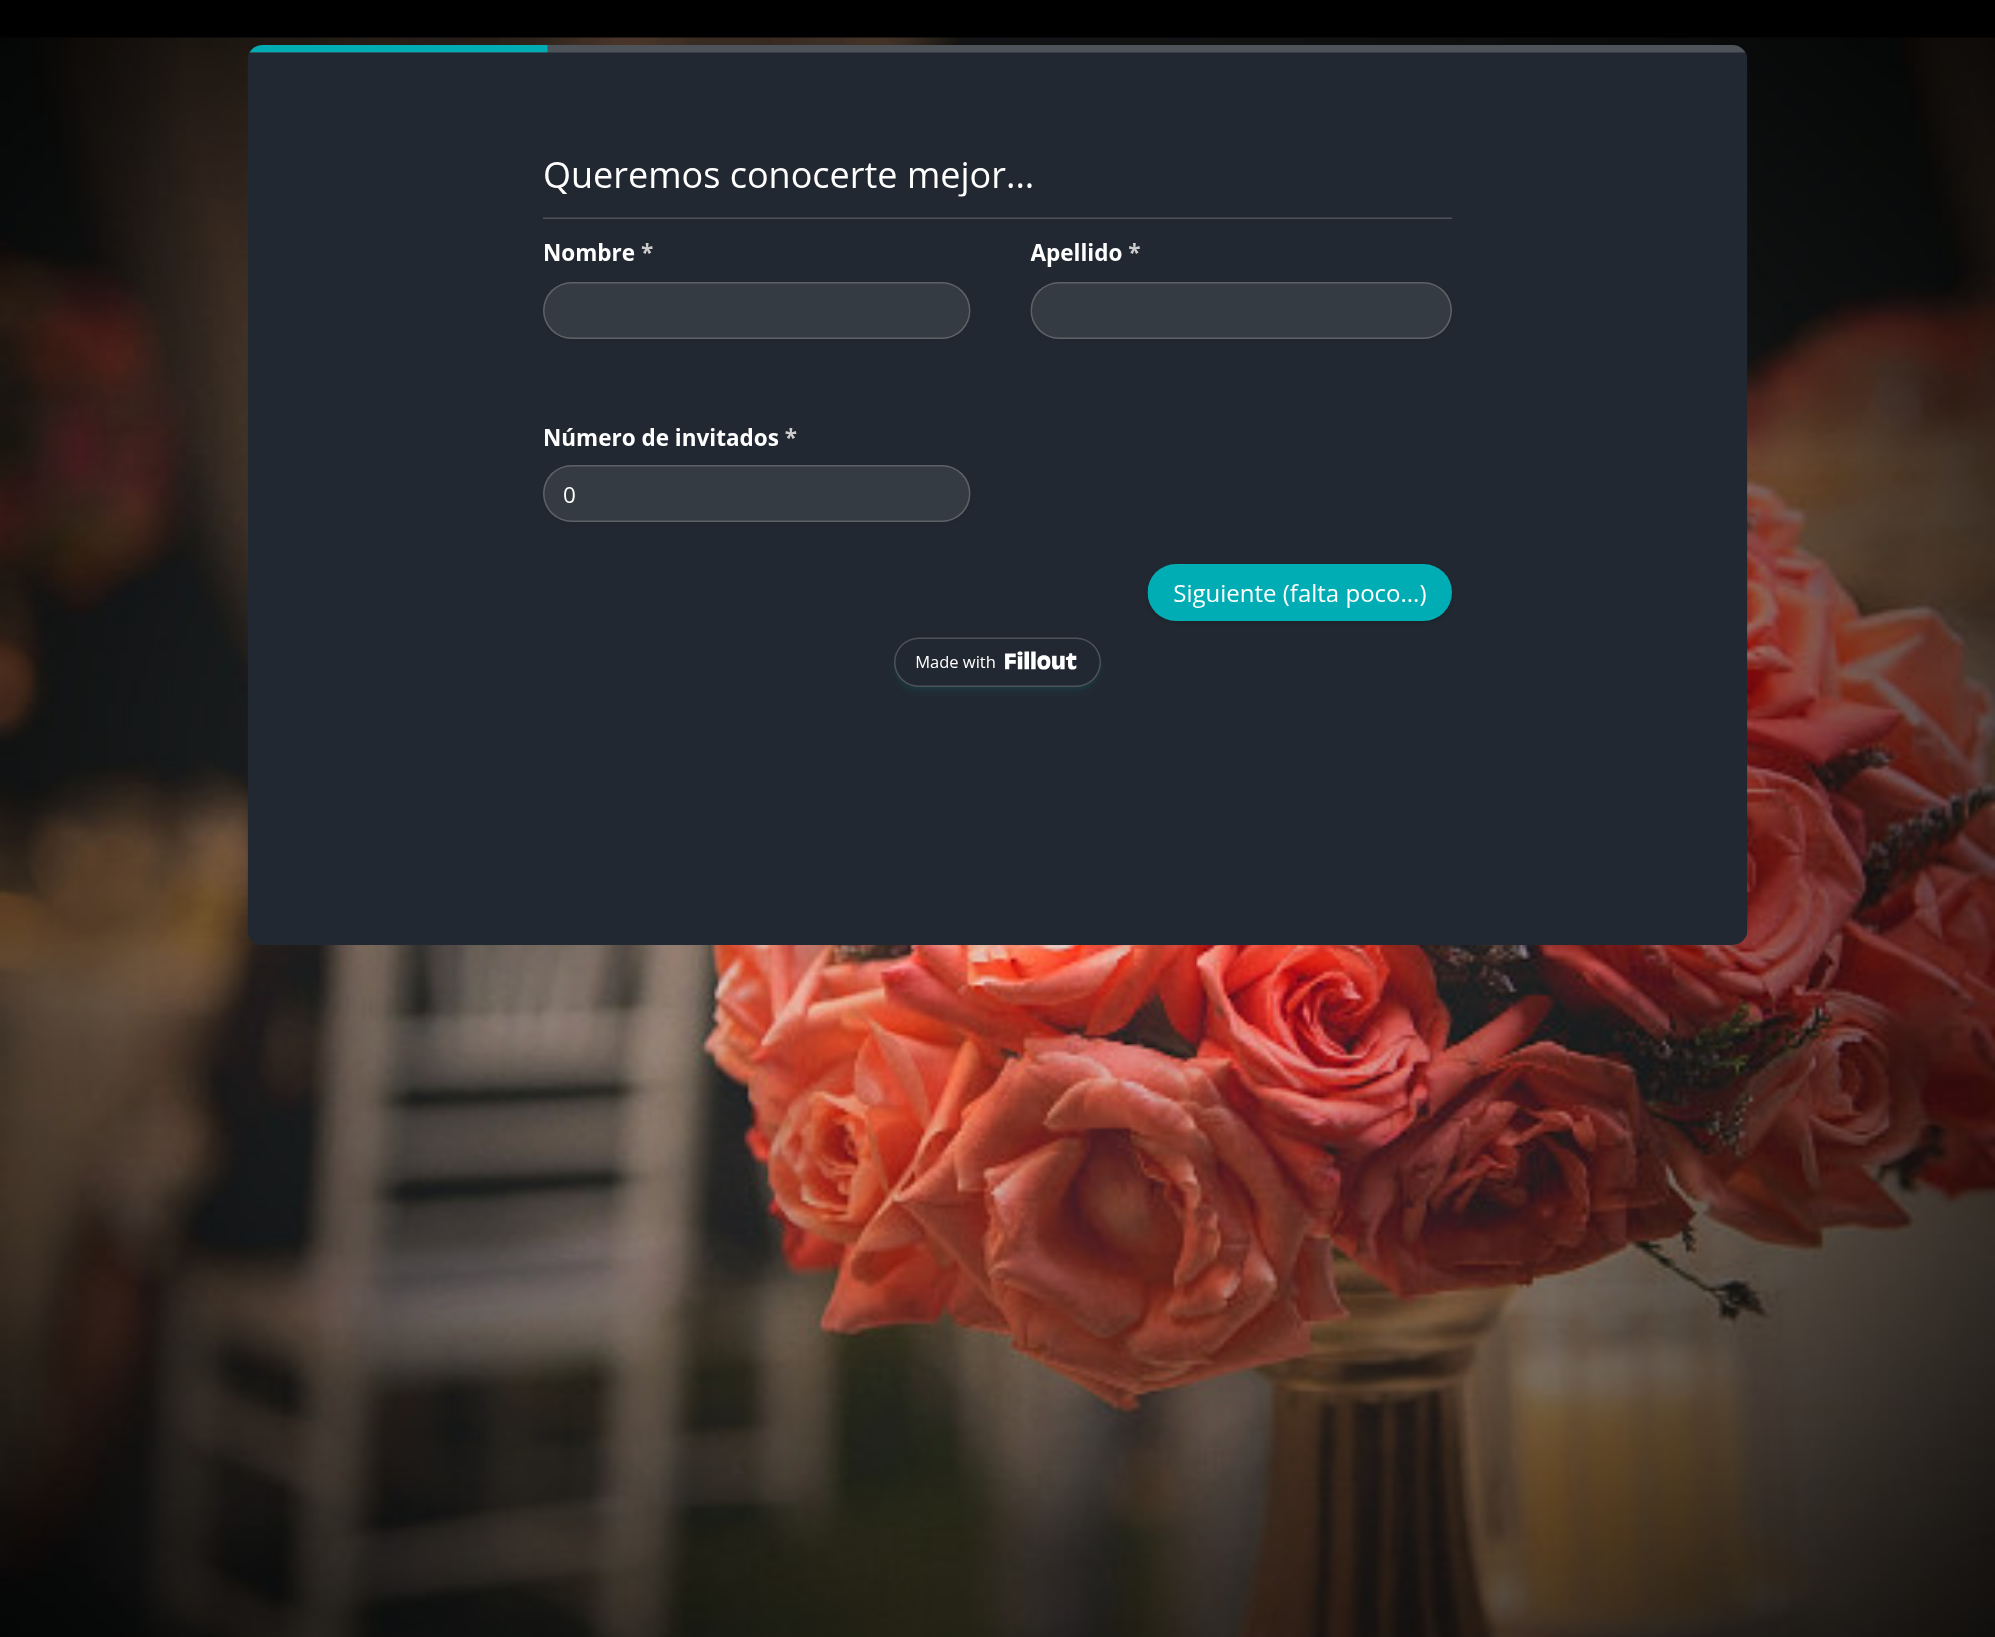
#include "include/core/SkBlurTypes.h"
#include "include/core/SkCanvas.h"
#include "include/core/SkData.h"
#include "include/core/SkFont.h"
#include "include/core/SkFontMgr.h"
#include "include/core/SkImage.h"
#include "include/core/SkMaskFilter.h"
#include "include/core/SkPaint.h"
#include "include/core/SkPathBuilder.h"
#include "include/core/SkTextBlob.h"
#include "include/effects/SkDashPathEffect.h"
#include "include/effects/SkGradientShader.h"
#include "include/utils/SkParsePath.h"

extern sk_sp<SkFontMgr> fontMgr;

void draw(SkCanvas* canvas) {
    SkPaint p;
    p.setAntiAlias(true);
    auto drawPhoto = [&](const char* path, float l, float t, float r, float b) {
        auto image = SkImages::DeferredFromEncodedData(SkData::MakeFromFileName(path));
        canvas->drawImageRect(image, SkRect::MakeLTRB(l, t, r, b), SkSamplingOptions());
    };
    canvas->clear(0xFF000000);
    drawPhoto("media/1.png", 0, 37, 1995, 1637);
    drawPhoto("media/2.png", 247, 45, 1748, 945);
}
